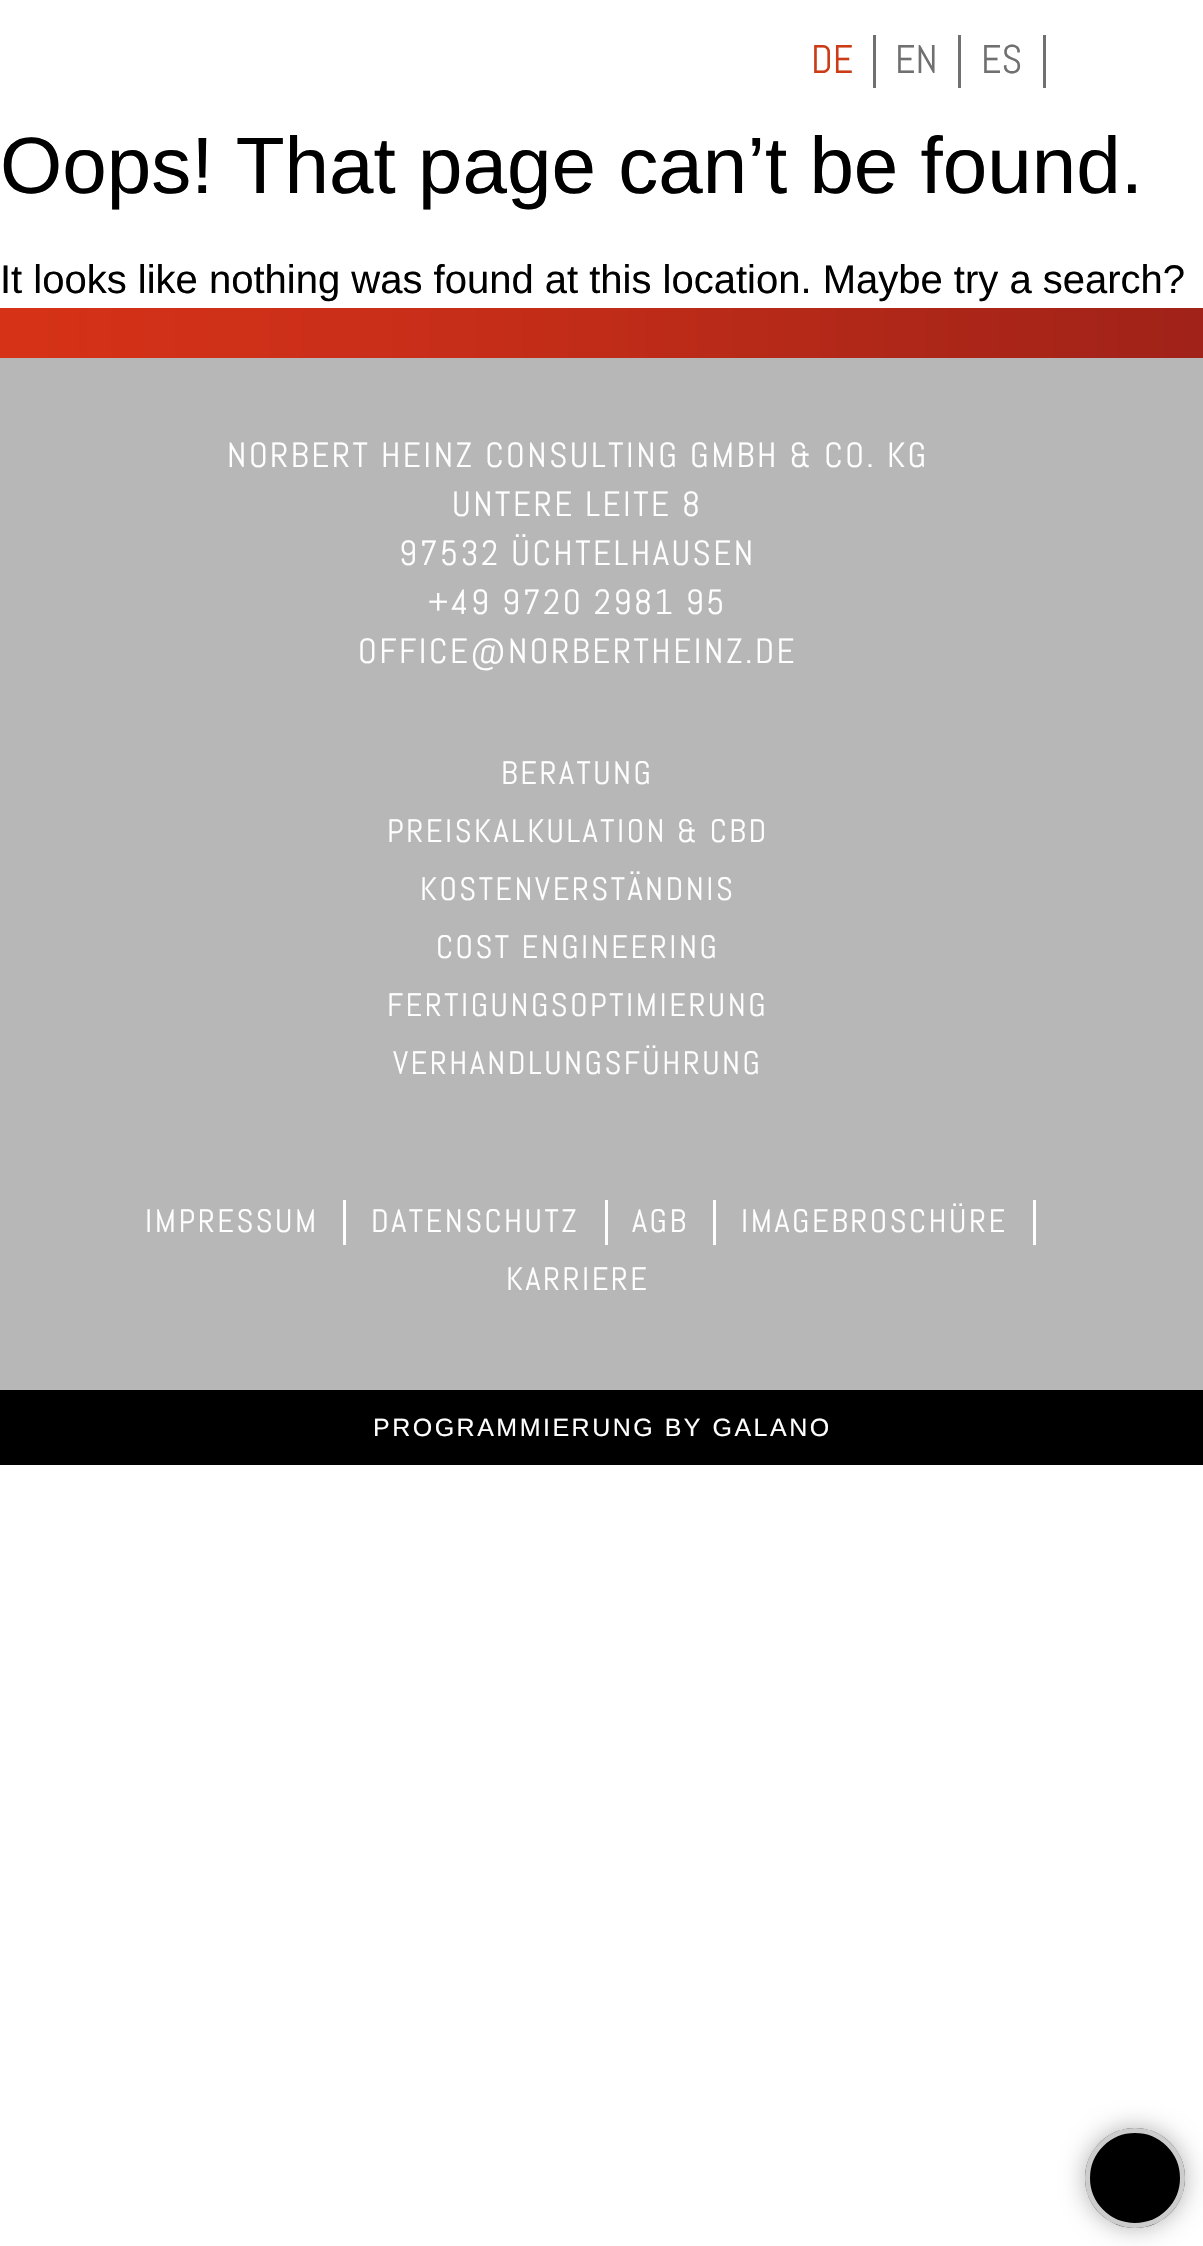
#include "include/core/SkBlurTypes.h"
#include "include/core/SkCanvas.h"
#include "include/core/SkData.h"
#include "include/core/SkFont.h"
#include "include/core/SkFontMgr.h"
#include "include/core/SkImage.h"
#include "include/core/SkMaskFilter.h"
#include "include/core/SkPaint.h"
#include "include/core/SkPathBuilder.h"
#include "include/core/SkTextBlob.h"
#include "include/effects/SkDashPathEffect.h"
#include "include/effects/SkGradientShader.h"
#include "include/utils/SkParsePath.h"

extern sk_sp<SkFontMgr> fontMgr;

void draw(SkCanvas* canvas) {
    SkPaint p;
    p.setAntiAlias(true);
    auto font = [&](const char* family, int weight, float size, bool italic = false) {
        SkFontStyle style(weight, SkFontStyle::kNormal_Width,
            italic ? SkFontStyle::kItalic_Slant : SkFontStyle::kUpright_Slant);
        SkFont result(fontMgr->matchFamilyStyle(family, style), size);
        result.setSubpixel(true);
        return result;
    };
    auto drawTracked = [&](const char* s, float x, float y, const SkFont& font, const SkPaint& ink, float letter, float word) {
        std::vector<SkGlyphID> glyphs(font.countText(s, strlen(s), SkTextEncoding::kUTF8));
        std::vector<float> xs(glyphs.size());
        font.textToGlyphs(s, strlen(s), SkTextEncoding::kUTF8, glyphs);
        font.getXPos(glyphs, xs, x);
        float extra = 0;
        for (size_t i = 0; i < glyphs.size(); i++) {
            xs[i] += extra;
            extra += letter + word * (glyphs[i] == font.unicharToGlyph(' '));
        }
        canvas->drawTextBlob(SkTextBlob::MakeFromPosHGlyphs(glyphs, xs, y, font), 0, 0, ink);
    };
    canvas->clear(0xFFFFFFFF);
    p.setColor(0xFF707070);
    canvas->drawRect(SkRect::MakeLTRB(873, 35, 876, 88), p);
    auto font1 = font("Abel", 400, 40);
    p.setColor(0xFFCB3C16);
    canvas->drawString("DE", 811, 73, font1, p);
    p.setColor(0xFF707070);
    canvas->drawRect(SkRect::MakeLTRB(958, 35, 961, 88), p);
    canvas->drawString("EN", 895, 73, font1, p);
    canvas->drawRect(SkRect::MakeLTRB(1043, 35, 1046, 88), p);
    canvas->drawString("ES", 981, 73, font1, p);
    auto font2 = font("Liberation Sans", 400, 80);
    p.setColor(0xFF000000);
    canvas->drawString("Oops! That page can’t be found.", 0, 193, font2, p);
    auto font3 = font("Liberation Sans", 400, 40);
    canvas->drawString("It looks like nothing was found at this location. Maybe try a search?", 0, 293, font3, p);
    {
        const SkColor colors[] = {0xFFD63217, 0xFFCB2F19, 0xFFC02C18, 0xFFAE2718, 0xFFA12219};
        const float stops[] = {0, 0.29f, 0.5f, 0.76f, 0.99f};
        const SkPoint ends[] = {{0, 333}, {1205, 332}};
        p.setShader(SkGradientShader::MakeLinear(ends, colors, stops, 5, SkTileMode::kClamp));
        p.setAlpha(255);
    }
    canvas->drawRect(SkRect::MakeLTRB(0, 308, 1203, 358), p);
    p.setShader(nullptr);
    p.setColor(0xFFB7B7B7);
    canvas->drawRect(SkRect::MakeLTRB(0, 358, 1203, 1390), p);
    auto font4 = font("Abel", 400, 35);
    p.setColor(0xFFFFFFFF);
    {
        const struct { const char* s; float x, y; } items[] = {
            {"NORBERT HEINZ CONSULTING GMBH & CO. KG", 227, 467},
            {"UNTERE LEITE 8", 452, 516},
            {"97532 ÜCHTELHAUSEN", 399, 565},
            {"+49 9720 2981 95", 428, 614},
            {"OFFICE@NORBERTHEINZ.DE", 358, 663},
        };
        for (auto [s, x, y] : items) {
            drawTracked(s, x, y, font4, p, 2.5f, 0);
        }
    }
    auto font5 = font("Abel", 400, 32.5f);
    {
        const struct { const char* s; float x, y; } items[] = {
            {"BERATUNG", 501, 784},
            {"PREISKALKULATION & CBD", 387, 842},
            {"KOSTENVERSTÄNDNIS", 420, 900},
            {"COST ENGINEERING", 436, 958},
            {"FERTIGUNGSOPTIMIERUNG", 387, 1016},
            {"VERHANDLUNGSFÜHRUNG", 393, 1074},
        };
        for (auto [s, x, y] : items) {
            drawTracked(s, x, y, font5, p, 2.5f, 0);
        }
    }
    canvas->drawRect(SkRect::MakeLTRB(343, 1200, 346, 1245), p);
    drawTracked("IMPRESSUM", 145, 1232, font5, p, 2.5f, 0);
    canvas->drawRect(SkRect::MakeLTRB(605, 1200, 608, 1245), p);
    drawTracked("DATENSCHUTZ", 371, 1232, font5, p, 2.5f, 0);
    canvas->drawRect(SkRect::MakeLTRB(713, 1200, 716, 1245), p);
    drawTracked("AGB", 632, 1232, font5, p, 2.5f, 0);
    canvas->drawRect(SkRect::MakeLTRB(1033, 1200, 1036, 1245), p);
    drawTracked("IMAGEBROSCHÜRE", 741, 1232, font5, p, 2.5f, 0);
    drawTracked("KARRIERE", 506, 1290, font5, p, 2.5f, 0);
    p.setColor(0xFF000000);
    canvas->drawRect(SkRect::MakeLTRB(0, 1390, 1203, 1465), p);
    auto font6 = font("Liberation Sans", 400, 25);
    p.setColor(0xFFFFFFFF);
    drawTracked("PROGRAMMIERUNG BY GALANO", 373, 1436, font6, p, 2.5f, 0);
    p.setColor(0x4D000000);
    p.setMaskFilter(SkMaskFilter::MakeBlur(kNormal_SkBlurStyle, 12.5f));
    canvas->drawRoundRect(SkRect::MakeLTRB(1085, 2128, 1185, 2228), 50, 50, p);
    p.setMaskFilter(nullptr);
    p.setColor(0xFF000000);
    canvas->drawCircle(1135, 2178, 50, p);
    p.setStyle(SkPaint::kStroke_Style);
    p.setStrokeWidth(5);
    p.setColor(0xCCFFFFFF);
    canvas->drawCircle(1135, 2178, 47.5f, p);
}
